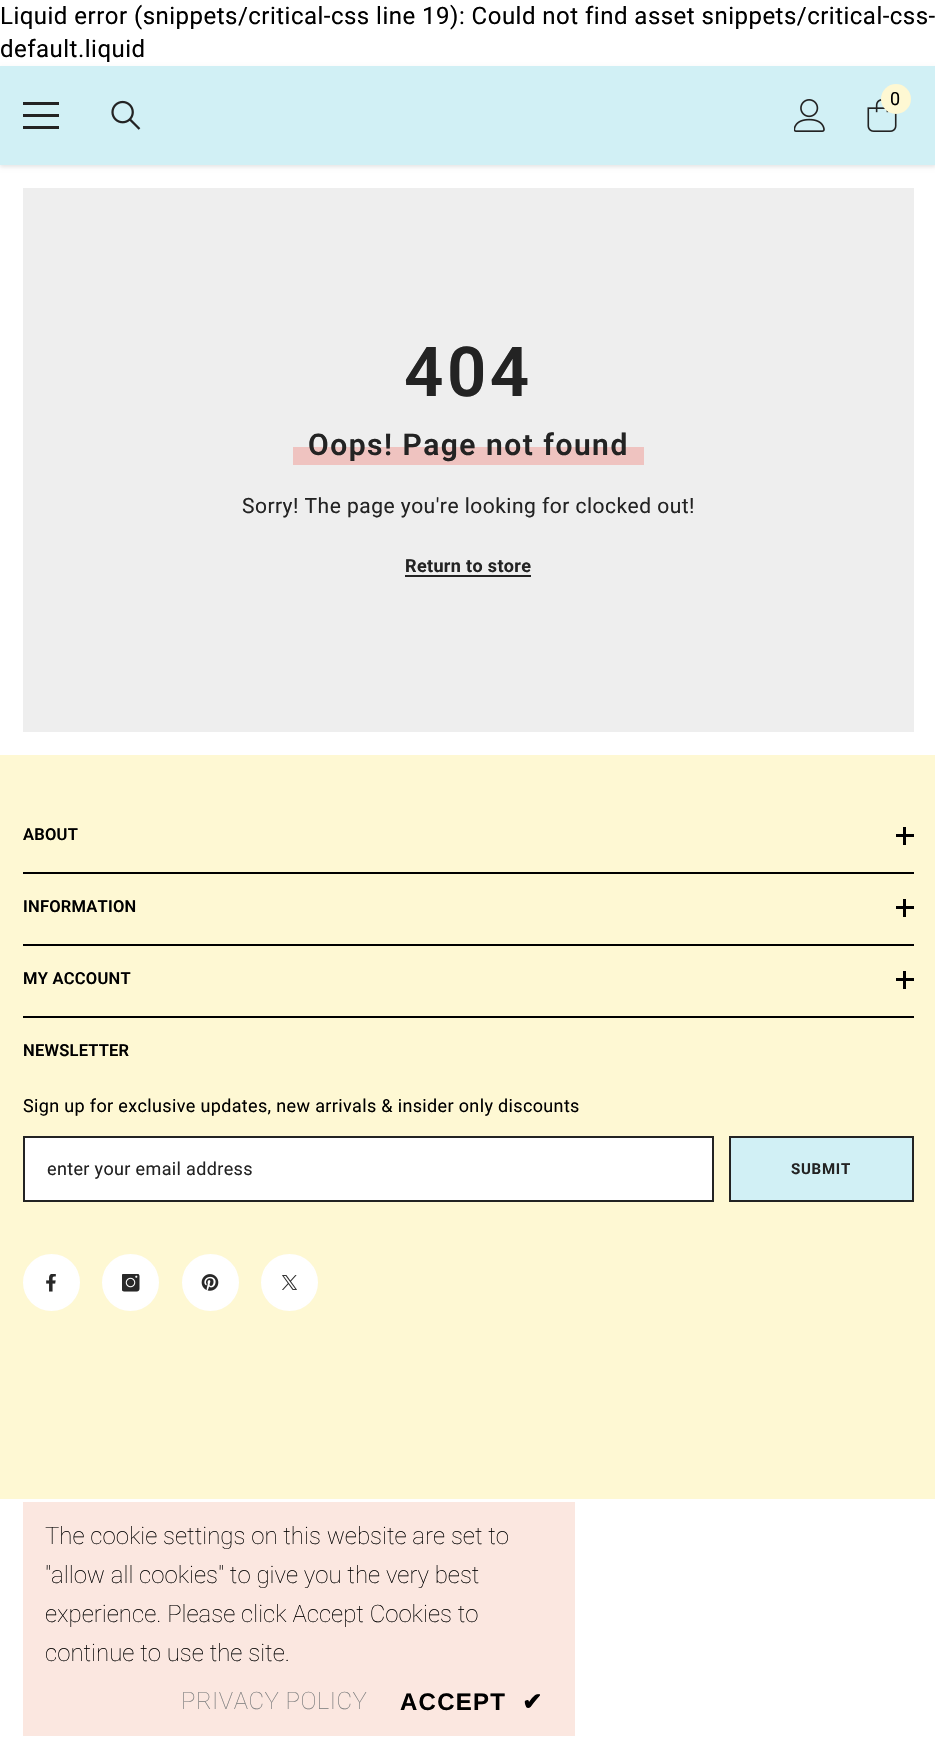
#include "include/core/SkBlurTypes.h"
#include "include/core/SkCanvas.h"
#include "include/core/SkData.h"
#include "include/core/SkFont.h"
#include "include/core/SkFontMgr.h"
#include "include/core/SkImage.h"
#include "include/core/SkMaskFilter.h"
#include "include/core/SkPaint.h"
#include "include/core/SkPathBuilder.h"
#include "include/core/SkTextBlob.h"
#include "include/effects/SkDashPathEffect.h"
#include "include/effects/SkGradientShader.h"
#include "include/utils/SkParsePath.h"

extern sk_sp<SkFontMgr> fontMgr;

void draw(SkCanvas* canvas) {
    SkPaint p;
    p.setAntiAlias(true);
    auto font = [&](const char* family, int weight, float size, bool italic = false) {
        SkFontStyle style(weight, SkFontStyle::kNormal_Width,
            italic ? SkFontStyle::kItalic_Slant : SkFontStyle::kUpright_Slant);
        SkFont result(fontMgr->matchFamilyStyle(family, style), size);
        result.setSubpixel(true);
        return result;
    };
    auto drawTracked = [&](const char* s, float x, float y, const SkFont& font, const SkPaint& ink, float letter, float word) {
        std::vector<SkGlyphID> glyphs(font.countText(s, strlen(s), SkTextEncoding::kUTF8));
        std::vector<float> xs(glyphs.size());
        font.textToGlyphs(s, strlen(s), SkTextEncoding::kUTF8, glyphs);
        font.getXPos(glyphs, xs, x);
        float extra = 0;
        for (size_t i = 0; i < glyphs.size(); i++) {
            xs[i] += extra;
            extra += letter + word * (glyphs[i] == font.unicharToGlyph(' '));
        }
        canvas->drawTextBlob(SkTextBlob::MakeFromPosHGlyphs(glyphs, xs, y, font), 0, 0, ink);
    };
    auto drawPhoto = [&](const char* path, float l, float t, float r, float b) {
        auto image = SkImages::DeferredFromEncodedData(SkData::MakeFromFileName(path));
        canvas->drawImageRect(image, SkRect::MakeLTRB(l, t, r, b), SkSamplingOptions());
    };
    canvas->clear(0xFFFFFFFF);
    auto font1 = font("Roboto", 400, 24);
    p.setColor(0xFF000000);
    drawTracked("Liquid error (snippets/critical-css line 19): Could not find asset snippets/critical-css-", 0, 24, font1, p, 0.48f, 0);
    drawTracked("default.liquid", 0, 57, font1, p, 0.48f, 0);
    p.setColor(0x1A000000);
    p.setMaskFilter(SkMaskFilter::MakeBlur(kNormal_SkBlurStyle, 2));
    canvas->drawRect(SkRect::MakeLTRB(0, 68, 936, 167), p);
    p.setMaskFilter(nullptr);
    {
        const struct { float l, t, r, b; SkColor color; } items[] = {
            {0, 66, 935, 165, 0xFFD1F0F5},
            {23, 114, 59, 117, 0xFF232323},
            {23, 102, 59, 105, 0xFF232323},
            {23, 126, 59, 129, 0xFF232323},
        };
        for (auto [l, t, r, b, color] : items) {
            p.setColor(color);
            canvas->drawRect(SkRect::MakeLTRB(l, t, r, b), p);
        }
    }
    drawPhoto("media/1.png", 111, 100, 141, 130);
    drawPhoto("media/2.png", 794, 99, 825, 132);
    drawPhoto("media/3.png", 867, 99, 897, 132);
    p.setColor(0xFFFEF8D3);
    canvas->drawCircle(896, 99, 15, p);
    auto font2 = font("Roboto", 400, 18);
    p.setColor(0xFF000000);
    canvas->drawString("0", 890, 105, font2, p);
    p.setColor(0xFFEEEEEE);
    canvas->drawRect(SkRect::MakeLTRB(23, 188, 914, 732), p);
    auto font3 = font("Roboto", 600, 69);
    p.setColor(0xFF232323);
    drawTracked("404", 404, 396, font3, p, 3.5f, 0);
    p.setColor(0xFFEFC3C0);
    canvas->drawRect(SkRect::MakeLTRB(293, 447, 644, 465), p);
    auto font4 = font("Roboto", 600, 30);
    p.setColor(0xFF232323);
    drawTracked("Oops! Page not found", 308, 455, font4, p, 1.5f, 0);
    auto font5 = font("Roboto", 400, 21);
    drawTracked("Sorry! The page you're looking for clocked out!", 242, 513, font5, p, 0.48f, 0);
    auto font6 = font("Roboto", 700, 18);
    drawTracked("Return to store", 405, 572, font6, p, 0.35f, 0);
    {
        const struct { float l, t, r, b; SkColor color; } items[] = {
            {405, 575, 531, 577, 0xFF232323},
            {0, 755, 935, 1499, 0xFFFEF8D3},
            {23, 872, 914, 874, 0xFF000000},
        };
        for (auto [l, t, r, b, color] : items) {
            p.setColor(color);
            canvas->drawRect(SkRect::MakeLTRB(l, t, r, b), p);
        }
    }
    auto font7 = font("Roboto", 600, 16.5f);
    drawTracked("ABOUT", 23, 840, font7, p, 0.25f, 0);
    {
        const struct { float l, t, r, b; SkColor color; } items[] = {
            {903, 827, 906, 845, 0xFF000000},
            {896, 834, 914, 837, 0xFF000000},
            {23, 944, 914, 946, 0xFF000000},
        };
        for (auto [l, t, r, b, color] : items) {
            p.setColor(color);
            canvas->drawRect(SkRect::MakeLTRB(l, t, r, b), p);
        }
    }
    drawTracked("INFORMATION", 23, 912, font7, p, 0.25f, 0);
    {
        const struct { float l, t, r, b; SkColor color; } items[] = {
            {903, 899, 906, 917, 0xFF000000},
            {896, 906, 914, 909, 0xFF000000},
            {23, 1016, 914, 1018, 0xFF000000},
        };
        for (auto [l, t, r, b, color] : items) {
            p.setColor(color);
            canvas->drawRect(SkRect::MakeLTRB(l, t, r, b), p);
        }
    }
    drawTracked("MY ACCOUNT", 23, 984, font7, p, 0.25f, 0);
    canvas->drawRect(SkRect::MakeLTRB(903, 971, 906, 989), p);
    canvas->drawRect(SkRect::MakeLTRB(896, 978, 914, 981), p);
    drawTracked("NEWSLETTER", 23, 1056, font7, p, 0.25f, 0);
    drawTracked("Sign up for exclusive updates, new arrivals & insider only discounts", 23, 1112, font2, p, 0.35f, 0);
    p.setColor(0xFFFFFFFF);
    canvas->drawRect(SkRect::MakeLTRB(24, 1137, 713, 1201), p);
    p.setStyle(SkPaint::kStroke_Style);
    p.setStrokeWidth(2);
    p.setColor(0xFF232323);
    canvas->drawRect(SkRect::MakeLTRB(24, 1137, 713, 1201), p);
    p.setStyle(SkPaint::kFill_Style);
    drawTracked("enter your email address", 47, 1175, font2, p, 0.35f, 0);
    p.setColor(0xFFD1F0F5);
    canvas->drawRect(SkRect::MakeLTRB(730, 1137, 913, 1201), p);
    p.setStyle(SkPaint::kStroke_Style);
    p.setColor(0xFF232323);
    canvas->drawRect(SkRect::MakeLTRB(730, 1137, 913, 1201), p);
    auto font8 = font("Roboto", 700, 15);
    p.setStyle(SkPaint::kFill_Style);
    drawTracked("SUBMIT", 791, 1174, font8, p, 0.75f, 0);
    p.setColor(0xFFFFFFFF);
    canvas->drawCircle(51.5f, 1282.5f, 27.5f, p);
    p.setStyle(SkPaint::kStroke_Style);
    canvas->drawCircle(51.5f, 1282.5f, 27.5f, p);
    drawPhoto("media/4.png", 46, 1274, 56, 1292);
    p.setStyle(SkPaint::kFill_Style);
    canvas->drawCircle(130.5f, 1282.5f, 27.5f, p);
    p.setStyle(SkPaint::kStroke_Style);
    canvas->drawCircle(130.5f, 1282.5f, 27.5f, p);
    drawPhoto("media/5.png", 122, 1274, 140, 1292);
    p.setStyle(SkPaint::kFill_Style);
    canvas->drawCircle(210.5f, 1282.5f, 27.5f, p);
    p.setStyle(SkPaint::kStroke_Style);
    canvas->drawCircle(210.5f, 1282.5f, 27.5f, p);
    drawPhoto("media/6.png", 201, 1274, 219, 1291);
    p.setStyle(SkPaint::kFill_Style);
    canvas->drawCircle(289.5f, 1282.5f, 27.5f, p);
    p.setStyle(SkPaint::kStroke_Style);
    canvas->drawCircle(289.5f, 1282.5f, 27.5f, p);
    drawPhoto("media/7.png", 282, 1275, 297, 1290);
    p.setStyle(SkPaint::kFill_Style);
    p.setColor(0xFFFBE7E0);
    canvas->drawRect(SkRect::MakeLTRB(23, 1502, 575, 1736), p);
    auto font9 = font("Roboto", 100, 24);
    p.setColor(0xFF000000);
    {
        const struct { const char* s; float x, y; } items[] = {
            {"The cookie settings on this website are set to", 45, 1544},
            {"\"allow all cookies\" to give you the very best", 45, 1583},
            {"experience. Please click Accept Cookies to", 45, 1622},
            {"continue to use the site.", 45, 1661},
        };
        for (auto [s, x, y] : items) {
            canvas->drawString(s, x, y, font9, p);
        }
    }
    p.setColor(0xFF818181);
    drawTracked("PRIVACY POLICY", 181, 1709, font9, p, 0.48f, 0);
    auto font10 = font("Liberation Sans", 700, 24);
    p.setColor(0xFF000000);
    drawTracked("ACCEPT", 400, 1710, font10, p, 1.25f, 0);
    auto font11 = font("DejaVu Sans", 700, 24);
    drawTracked("✔", 522, 1710, font11, p, 1.25f, 0);
}
